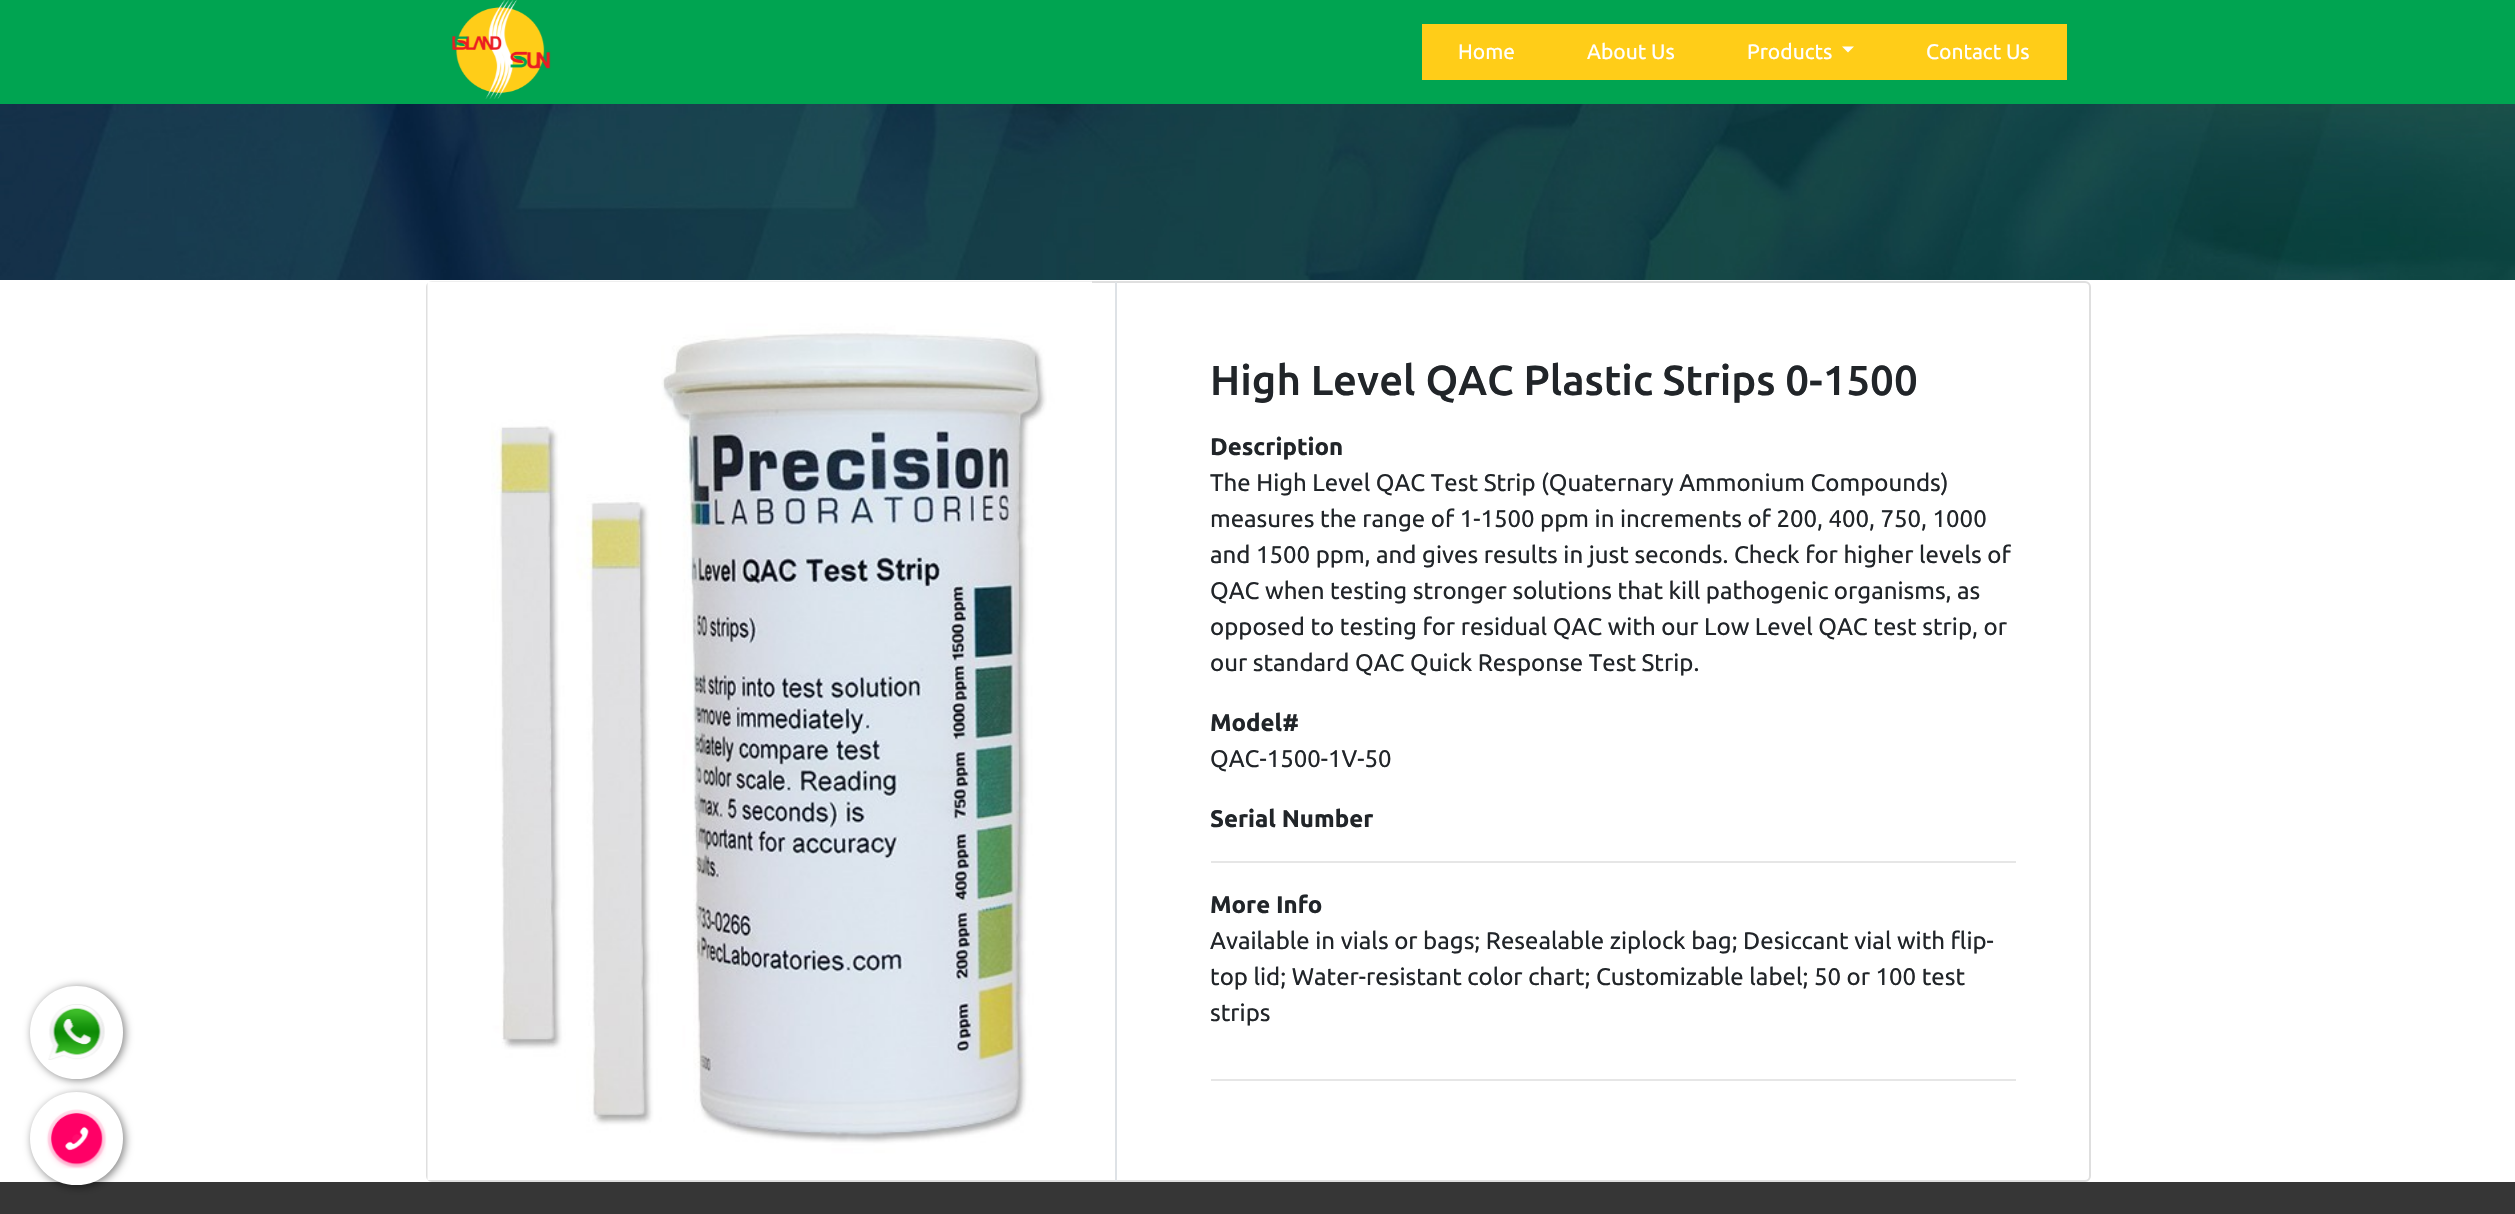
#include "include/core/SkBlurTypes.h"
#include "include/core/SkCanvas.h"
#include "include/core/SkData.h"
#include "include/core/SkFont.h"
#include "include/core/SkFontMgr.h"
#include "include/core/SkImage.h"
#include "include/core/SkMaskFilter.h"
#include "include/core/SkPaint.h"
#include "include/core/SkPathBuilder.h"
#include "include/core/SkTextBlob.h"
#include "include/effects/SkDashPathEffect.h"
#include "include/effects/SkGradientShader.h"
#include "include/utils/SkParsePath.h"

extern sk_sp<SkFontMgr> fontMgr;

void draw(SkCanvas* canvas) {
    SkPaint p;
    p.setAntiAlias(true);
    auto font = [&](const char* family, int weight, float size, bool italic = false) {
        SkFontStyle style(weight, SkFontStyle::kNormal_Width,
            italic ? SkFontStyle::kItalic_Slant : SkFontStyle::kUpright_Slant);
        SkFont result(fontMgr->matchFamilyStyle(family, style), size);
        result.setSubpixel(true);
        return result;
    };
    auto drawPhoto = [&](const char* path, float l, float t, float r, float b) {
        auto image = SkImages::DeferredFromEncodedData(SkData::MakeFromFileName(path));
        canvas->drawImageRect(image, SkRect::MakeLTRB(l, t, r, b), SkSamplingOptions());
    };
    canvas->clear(0xFFFFFFFF);
    p.setColor(0xFF00A451);
    canvas->drawRect(SkRect::MakeLTRB(0, 0, 2515, 104), p);
    drawPhoto("media/1.png", 452, 0, 551, 99);
    p.setColor(0xFFFFCD18);
    canvas->drawRect(SkRect::MakeLTRB(1422, 24, 1712, 80), p);
    auto font1 = font("Ubuntu", 400, 21);
    p.setColor(0xFFFFFFFF);
    canvas->drawString("Home", 1458, 59, font1, p);
    canvas->drawString("About Us", 1587, 59, font1, p);
    p.setColor(0xFFFFCD18);
    canvas->drawRect(SkRect::MakeLTRB(1712, 24, 2067, 80), p);
    p.setColor(0xFFFFFFFF);
    canvas->drawString("Products", 1747, 59, font1, p);
    canvas->drawPath(SkPathBuilder().moveTo(1842, 46.5f).lineTo(1854, 46.5f).lineTo(1848, 52.5f).close().detach(), p);
    canvas->drawString("Contact Us", 1926, 59, font1, p);
    drawPhoto("media/2.png", 0, 104, 2515, 280);
    p.setColor(0xFF363636);
    canvas->drawRect(SkRect::MakeLTRB(0, 1182, 2515, 1214), p);
    p.setColor(0x80000000);
    p.setMaskFilter(SkMaskFilter::MakeBlur(kNormal_SkBlurStyle, 4));
    canvas->drawRoundRect(SkRect::MakeLTRB(32, 1094, 125, 1187), 46.5f, 46.5f, p);
    p.setMaskFilter(nullptr);
    p.setColor(0xFFFFFFFF);
    canvas->drawCircle(76.5f, 1138.5f, 45.5f, p);
    p.setStyle(SkPaint::kStroke_Style);
    p.setStrokeWidth(2);
    canvas->drawCircle(76.5f, 1138.5f, 45.5f, p);
    p.setStyle(SkPaint::kFill_Style);
    p.setColor(0x80000000);
    p.setMaskFilter(SkMaskFilter::MakeBlur(kNormal_SkBlurStyle, 4));
    canvas->drawRoundRect(SkRect::MakeLTRB(32, 987, 125, 1080), 46.5f, 46.5f, p);
    p.setMaskFilter(nullptr);
    p.setColor(0xFFFFFFFF);
    canvas->drawCircle(76.5f, 1032.5f, 45.5f, p);
    p.setStyle(SkPaint::kStroke_Style);
    canvas->drawCircle(76.5f, 1032.5f, 45.5f, p);
    drawPhoto("media/3.png", 48, 1004, 105, 1060);
    p.setColor(0xFFDFDFDF);
    canvas->drawRoundRect(SkRect::MakeLTRB(427, 282, 2090, 1181), 5, 5, p);
    p.setStyle(SkPaint::kFill_Style);
    p.setColor(0xFFDEE2E6);
    canvas->drawRect(SkRect::MakeLTRB(1115, 282, 1117, 1181), p);
    drawPhoto("media/4.png", 427, 281, 1092, 1180);
    auto font2 = font("Ubuntu", 500, 42);
    p.setColor(0xFF212529);
    canvas->drawString("High Level QAC Plastic Strips 0-1500", 1210, 395, font2, p);
    auto font3 = font("Ubuntu", 700, 24);
    canvas->drawString("Description", 1210, 455, font3, p);
    auto font4 = font("Ubuntu", 400, 24);
    {
        const struct { const char* s; float x, y; } items[] = {
            {"The High Level QAC Test Strip (Quaternary Ammonium Compounds)", 1210, 491},
            {"measures the range of 1-1500 ppm in increments of 200, 400, 750, 1000", 1210, 527},
            {"and 1500 ppm, and gives results in just seconds. Check for higher levels of", 1210, 563},
            {"QAC when testing stronger solutions that kill pathogenic organisms, as", 1210, 599},
            {"opposed to testing for residual QAC with our Low Level QAC test strip, or", 1210, 635},
            {"our standard QAC Quick Response Test Strip.", 1210, 671},
        };
        for (auto [s, x, y] : items) {
            canvas->drawString(s, x, y, font4, p);
        }
    }
    canvas->drawString("Model#", 1210, 731, font3, p);
    canvas->drawString("QAC-1500-1V-50", 1210, 767, font4, p);
    canvas->drawString("Serial Number", 1210, 827, font3, p);
    p.setColor(0xFFE6E6E6);
    canvas->drawRect(SkRect::MakeLTRB(1211, 861, 2016, 863), p);
    p.setColor(0xFF212529);
    canvas->drawString("More Info", 1210, 913, font3, p);
    {
        const struct { const char* s; float x, y; } items[] = {
            {"Available in vials or bags; Resealable ziplock bag; Desiccant vial with flip-", 1210, 949},
            {"top lid; Water-resistant color chart; Customizable label; 50 or 100 test", 1210, 985},
            {"strips", 1210, 1021},
        };
        for (auto [s, x, y] : items) {
            canvas->drawString(s, x, y, font4, p);
        }
    }
    p.setColor(0xFFE6E6E6);
    canvas->drawRect(SkRect::MakeLTRB(1211, 1079, 2016, 1081), p);
    drawPhoto("media/5.png", 46, 1109, 107, 1169);
}
